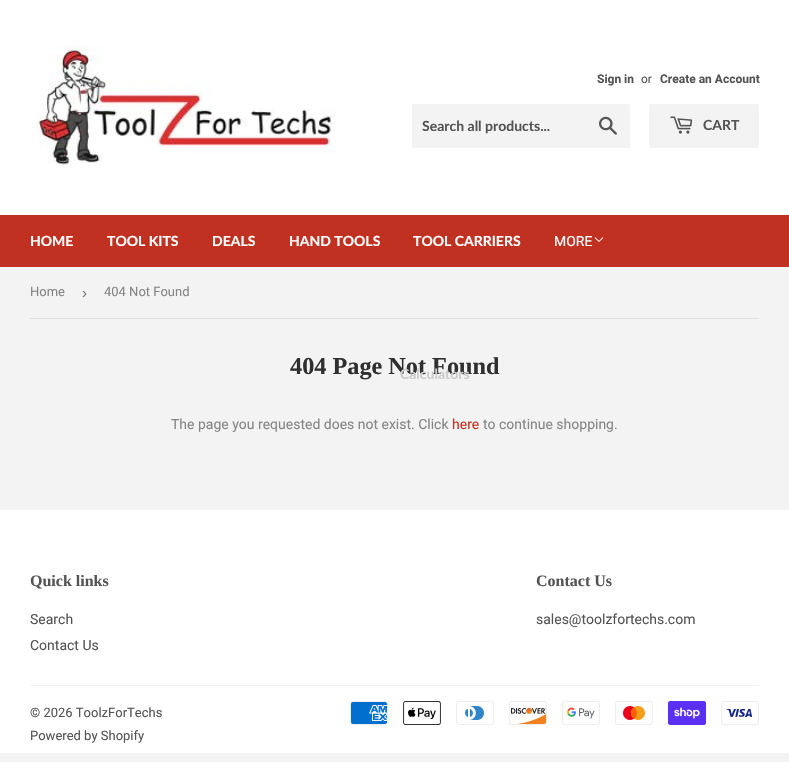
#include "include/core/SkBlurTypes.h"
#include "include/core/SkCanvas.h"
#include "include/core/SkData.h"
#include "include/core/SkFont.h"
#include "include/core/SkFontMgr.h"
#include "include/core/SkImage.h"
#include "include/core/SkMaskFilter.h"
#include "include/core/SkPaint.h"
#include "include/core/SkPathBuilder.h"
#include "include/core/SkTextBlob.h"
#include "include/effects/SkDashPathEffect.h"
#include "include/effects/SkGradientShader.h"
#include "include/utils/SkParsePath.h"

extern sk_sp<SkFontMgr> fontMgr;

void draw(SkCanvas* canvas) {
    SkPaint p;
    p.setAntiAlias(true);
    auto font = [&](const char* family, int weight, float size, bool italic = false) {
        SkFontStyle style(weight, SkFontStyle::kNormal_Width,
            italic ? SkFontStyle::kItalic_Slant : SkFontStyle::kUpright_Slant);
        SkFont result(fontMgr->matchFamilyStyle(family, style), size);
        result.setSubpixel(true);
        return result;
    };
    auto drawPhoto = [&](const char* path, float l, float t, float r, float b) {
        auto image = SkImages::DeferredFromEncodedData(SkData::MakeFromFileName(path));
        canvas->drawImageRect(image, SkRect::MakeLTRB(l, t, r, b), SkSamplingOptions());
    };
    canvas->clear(0xFFF3F3F3);
    p.setColor(0xFFFFFFFF);
    canvas->drawRect(SkRect::MakeLTRB(0, 0, 789, 215), p);
    drawPhoto("media/1.png", 38, 45, 335, 165);
    auto font1 = font("Roboto", 700, 12);
    p.setColor(0xFF545454);
    canvas->drawString("Sign in", 597, 83, font1, p);
    auto font2 = font("Roboto", 400, 12);
    canvas->drawString("or", 641, 83, font2, p);
    canvas->drawString("Create an Account", 660, 83, font1, p);
    p.setColor(0xFFF3F3F3);
    canvas->drawRoundRect(SkRect::MakeLTRB(412, 104, 630, 148), 2, 2, p);
    auto font3 = font("Lato", 700, 14);
    p.setColor(0xFF545454);
    canvas->drawString("Search all products...", 422, 131, font3, p);
    drawPhoto("media/2.png", 599, 116, 617, 135);
    p.setColor(0xFFF3F3F3);
    canvas->drawRoundRect(SkRect::MakeLTRB(649, 104, 759, 148), 2, 2, p);
    drawPhoto("media/3.png", 670, 116, 693, 134);
    p.setColor(0xFF545454);
    canvas->drawString("CART", 703, 130, font3, p);
    p.setColor(0xFFC13121);
    canvas->drawRect(SkRect::MakeLTRB(0, 215, 789, 267), p);
    p.setColor(0xFFFFFFFF);
    {
        const struct { const char* s; float x, y; } items[] = {
            {"HOME", 30, 246},
            {"TOOL KITS", 107, 246},
            {"DEALS", 212, 246},
            {"HAND TOOLS", 289, 246},
        };
        for (auto [s, x, y] : items) {
            canvas->drawString(s, x, y, font3, p);
        }
    }
    auto font4 = font("Roboto", 400, 14);
    canvas->drawString("MORE", 554, 246, font4, p);
    drawPhoto("media/4.png", 594, 237, 604, 242);
    auto font5 = font("Liberation Serif", 700, 24.25f);
    p.setColor(0xFF2F2F2F);
    canvas->drawString("404 Page Not Found", 290, 374, font5, p);
    p.setColor(0xFFCCCCCC);
    canvas->drawString("Calculators", 400, 379, font3, p);
    p.setColor(0xFFFFFFFF);
    canvas->drawString("TOOL CARRIERS", 413, 246, font3, p);
    p.setColor(0xFFDEDEDE);
    canvas->drawRect(SkRect::MakeLTRB(30, 318, 759, 319), p);
    auto font6 = font("Roboto", 400, 13);
    p.setColor(0xFF858585);
    canvas->drawString("Home", 30, 296, font6, p);
    auto font7 = font("Liberation Sans", 400, 15);
    p.setColor(0xFF767676);
    canvas->drawString("›", 82, 298, font7, p);
    p.setColor(0xFF858585);
    canvas->drawString("404 Not Found", 104, 296, font6, p);
    canvas->drawString("The page you requested does not exist. Click", 171, 429, font4, p);
    p.setColor(0xFFC13121);
    canvas->drawString("here", 452, 429, font4, p);
    p.setColor(0xFF858585);
    canvas->drawString("to continue shopping.", 483, 429, font4, p);
    p.setColor(0xFFFFFFFF);
    canvas->drawRect(SkRect::MakeLTRB(0, 510, 789, 753), p);
    auto font8 = font("Liberation Serif", 700, 16);
    p.setColor(0xFF545454);
    canvas->drawString("Quick links", 30, 586, font8, p);
    canvas->drawString("Search", 30, 624, font4, p);
    canvas->drawString("Contact Us", 30, 650, font4, p);
    canvas->drawString("Contact Us", 536, 586, font8, p);
    canvas->drawString("sales@toolzfortechs.com", 536, 624, font4, p);
    p.setColor(0xFFF2F2F2);
    canvas->drawRect(SkRect::MakeLTRB(30, 685, 759, 686), p);
    p.setColor(0xFF545454);
    canvas->drawString("© 2026 ToolzForTechs", 30, 717, font6, p);
    canvas->drawString("Powered by Shopify", 30, 740, font6, p);
    drawPhoto("media/5.png", 350, 701, 388, 725);
    drawPhoto("media/6.png", 403, 701, 441, 725);
    drawPhoto("media/7.png", 456, 701, 494, 725);
    drawPhoto("media/8.png", 509, 701, 547, 725);
    drawPhoto("media/9.png", 562, 701, 600, 725);
    drawPhoto("media/10.png", 615, 701, 653, 725);
    drawPhoto("media/11.png", 668, 701, 706, 725);
    drawPhoto("media/12.png", 721, 701, 759, 725);
}
